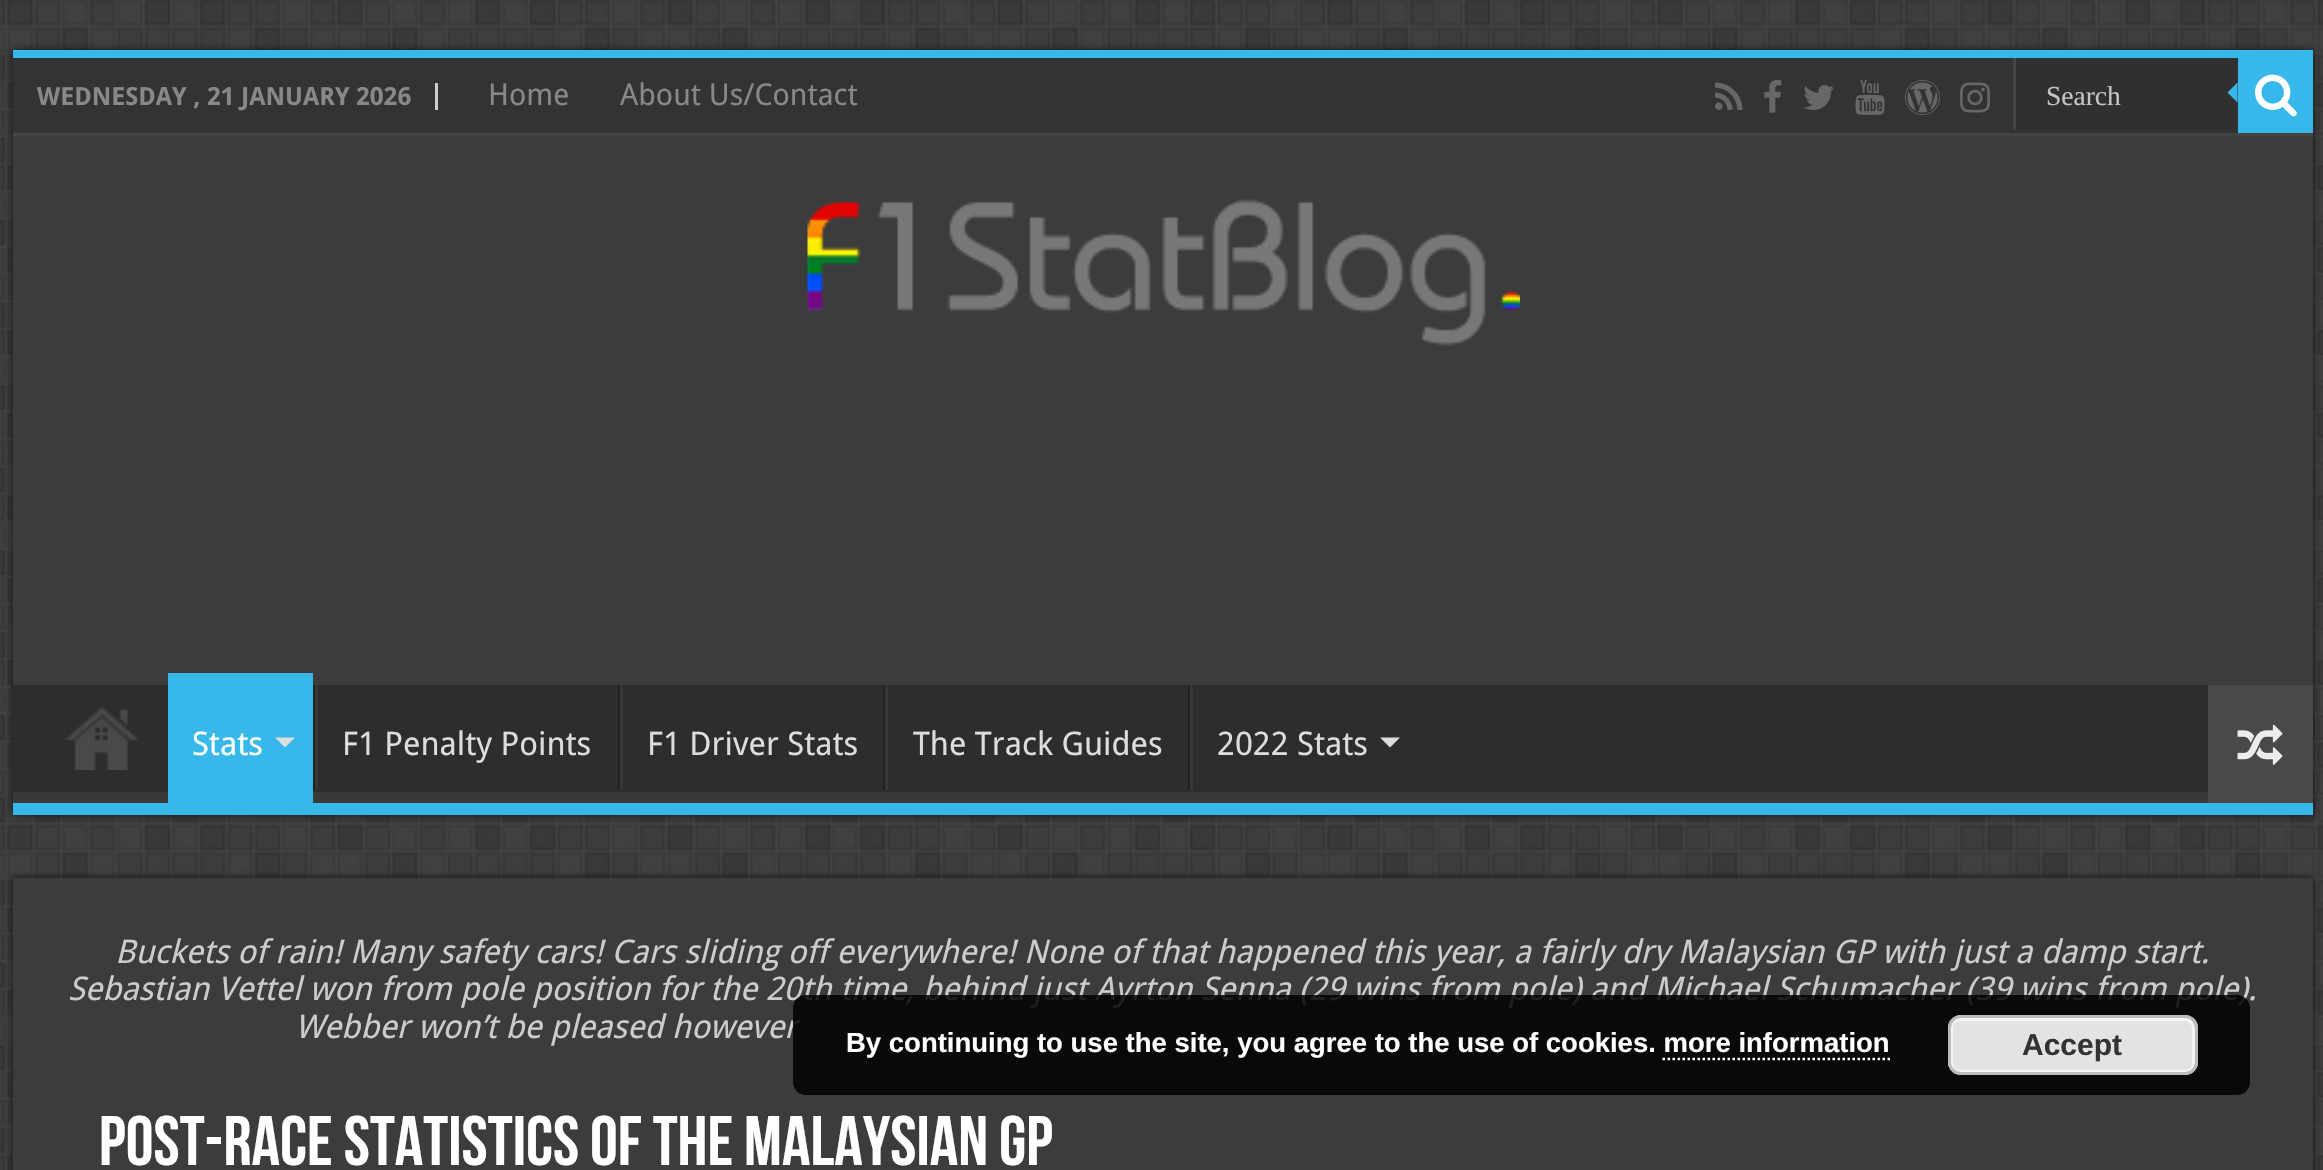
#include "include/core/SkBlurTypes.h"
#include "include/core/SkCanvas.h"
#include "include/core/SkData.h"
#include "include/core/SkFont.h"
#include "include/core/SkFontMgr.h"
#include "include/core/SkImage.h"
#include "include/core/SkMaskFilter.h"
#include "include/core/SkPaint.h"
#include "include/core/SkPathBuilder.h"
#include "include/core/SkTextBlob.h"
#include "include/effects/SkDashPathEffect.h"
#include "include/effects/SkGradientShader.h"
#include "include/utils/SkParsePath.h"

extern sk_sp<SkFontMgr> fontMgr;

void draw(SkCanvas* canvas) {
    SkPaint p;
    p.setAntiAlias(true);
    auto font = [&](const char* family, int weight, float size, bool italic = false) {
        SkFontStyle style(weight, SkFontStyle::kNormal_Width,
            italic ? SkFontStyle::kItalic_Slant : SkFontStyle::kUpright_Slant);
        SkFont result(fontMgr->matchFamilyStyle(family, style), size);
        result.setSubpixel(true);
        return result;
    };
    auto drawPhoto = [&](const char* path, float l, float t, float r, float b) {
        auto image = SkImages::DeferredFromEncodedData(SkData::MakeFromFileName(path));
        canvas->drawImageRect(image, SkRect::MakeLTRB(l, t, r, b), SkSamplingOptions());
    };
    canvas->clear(0xFF101010);
    drawPhoto("media/1.png", 0, 0, 2323, 1170);
    p.setColor(0xFF141414);
    p.setMaskFilter(SkMaskFilter::MakeBlur(kNormal_SkBlurStyle, 4));
    canvas->drawRect(SkRect::MakeLTRB(13, 50, 2313, 815), p);
    p.setMaskFilter(nullptr);
    {
        const struct { float l, t, r, b; SkColor color; } items[] = {
            {13, 136, 2313, 685, 0xFF3C3C3C},
            {13, 50, 2313, 58, 0xFF37B8EB},
            {13, 58, 2238, 133, 0xFF333333},
            {13, 133, 2313, 136, 0xFF444444},
            {435, 83, 438, 110, 0xFFCCCCCC},
        };
        for (auto [l, t, r, b, color] : items) {
            p.setColor(color);
            canvas->drawRect(SkRect::MakeLTRB(l, t, r, b), p);
        }
    }
    auto font1 = font("Droid Sans", 700, 25);
    p.setColor(0xFF888888);
    canvas->drawString("WEDNESDAY , 21 JANUARY 2026", 37, 105, font1, p);
    auto font2 = font("Droid Sans", 400, 30);
    canvas->drawString("Home", 488, 105, font2, p);
    canvas->drawString("About Us/Contact", 620, 105, font2, p);
    drawPhoto("media/2.png", 1715, 82, 1743, 110);
    drawPhoto("media/3.png", 1764, 80, 1782, 113);
    drawPhoto("media/4.png", 1803, 85, 1834, 110);
    drawPhoto("media/5.png", 1855, 80, 1885, 115);
    drawPhoto("media/6.png", 1905, 80, 1940, 115);
    drawPhoto("media/7.png", 1960, 82, 1990, 113);
    p.setColor(0xFF303030);
    canvas->drawRect(SkRect::MakeLTRB(2016, 58, 2238, 130), p);
    p.setColor(0xFF444444);
    canvas->drawRect(SkRect::MakeLTRB(2013, 58, 2016, 130), p);
    auto font3 = font("Liberation Serif", 400, 27.5f);
    p.setColor(0xFFC5C5C5);
    canvas->drawString("Search", 2046, 105, font3, p);
    p.setColor(0xFF37B8EB);
    canvas->drawRect(SkRect::MakeLTRB(2238, 58, 2313, 133), p);
    drawPhoto("media/8.png", 2255, 74, 2297, 117);
    canvas->drawPath(SkPathBuilder().moveTo(2237.5f, 82.5f).lineTo(2237.5f, 102.5f).lineTo(2227.5f, 92.5f).close().detach(), p);
    drawPhoto("media/9.png", 807, 199, 1520, 346);
    p.setColor(0xFF2D2D2D);
    canvas->drawRect(SkRect::MakeLTRB(13, 685, 2208, 792), p);
    canvas->save();
    canvas->clipRect(SkRect::MakeLTRB(13, 685, 2313, 803));
    p.setColor(0xFF393939);
    canvas->drawPath(SkPathBuilder(SkPathFillType::kEvenOdd).moveTo(-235, 438).lineTo(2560, 438).lineTo(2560, 1050).lineTo(-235, 1050).close().moveTo(10, 670).lineTo(2310, 670).cubicTo(2311, 670, 2312, 671, 2312, 672).lineTo(2312, 790).cubicTo(2312, 791, 2311, 792, 2310, 792).lineTo(10, 792).cubicTo(9, 792, 8, 791, 8, 790).lineTo(8, 672).cubicTo(8, 671, 9, 670, 10, 670).close().detach(), p);
    canvas->restore();
    p.setColor(0xFF37B8EB);
    canvas->drawRect(SkRect::MakeLTRB(13, 803, 2313, 815), p);
    drawPhoto("media/10.png", 65, 707, 138, 770);
    canvas->drawRect(SkRect::MakeLTRB(168, 673, 313, 803), p);
    auto font4 = font("Droid Sans", 400, 32.5f);
    p.setColor(0xFFFFFFFF);
    canvas->drawString("Stats", 192, 755, font4, p);
    p.setColor(0xFFDDDDDD);
    canvas->drawPath(SkPathBuilder().moveTo(275, 737.5f).lineTo(295, 737.5f).lineTo(285, 747.5f).close().detach(), p);
    p.setColor(0xFF222222);
    canvas->drawRect(SkRect::MakeLTRB(313, 685, 315, 790), p);
    p.setColor(0xFF383838);
    canvas->drawRect(SkRect::MakeLTRB(315, 685, 318, 790), p);
    p.setColor(0xFFDDDDDD);
    canvas->drawString("F1 Penalty Points", 342, 755, font4, p);
    p.setColor(0xFF222222);
    canvas->drawRect(SkRect::MakeLTRB(618, 685, 620, 790), p);
    p.setColor(0xFF383838);
    canvas->drawRect(SkRect::MakeLTRB(620, 685, 623, 790), p);
    p.setColor(0xFFDDDDDD);
    canvas->drawString("F1 Driver Stats", 647, 755, font4, p);
    p.setColor(0xFF222222);
    canvas->drawRect(SkRect::MakeLTRB(883, 685, 885, 790), p);
    p.setColor(0xFF383838);
    canvas->drawRect(SkRect::MakeLTRB(885, 685, 888, 790), p);
    p.setColor(0xFFDDDDDD);
    canvas->drawString("The Track Guides", 913, 755, font4, p);
    p.setColor(0xFF222222);
    canvas->drawRect(SkRect::MakeLTRB(1188, 685, 1190, 790), p);
    p.setColor(0xFF383838);
    canvas->drawRect(SkRect::MakeLTRB(1190, 685, 1193, 790), p);
    p.setColor(0xFFDDDDDD);
    canvas->drawString("2022 Stats", 1217, 755, font4, p);
    canvas->drawPath(SkPathBuilder().moveTo(1380, 737.5f).lineTo(1400, 737.5f).lineTo(1390, 747.5f).close().detach(), p);
    p.setColor(0xFF494949);
    canvas->drawRect(SkRect::MakeLTRB(2208, 685, 2313, 803), p);
    drawPhoto("media/11.png", 2237, 724, 2283, 765);
    p.setColor(0xFF141414);
    p.setMaskFilter(SkMaskFilter::MakeBlur(kNormal_SkBlurStyle, 4));
    canvas->drawRect(SkRect::MakeLTRB(13, 878, 2313, 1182), p);
    p.setMaskFilter(nullptr);
    p.setColor(0xFF3C3C3C);
    canvas->drawRect(SkRect::MakeLTRB(13, 878, 2313, 1170), p);
    auto font5 = font("Droid Sans", 400, 32.5f, true);
    p.setColor(0xFFCCCCCC);
    {
        const struct { const char* s; float x, y; } items[] = {
            {"Buckets of rain! Many safety cars! Cars sliding off everywhere! None of that happened this year, a fairly dry Malaysian GP with just a damp start.", 115, 963},
            {"Sebastian Vettel won from pole position for the 20th time, behind just Ayrton Senna (29 wins from pole) and Michael Schumacher (39 wins from pole).", 68, 1000},
            {"Webber won’t be pleased however", 295, 1038},
        };
        for (auto [s, x, y] : items) {
            canvas->drawString(s, x, y, font5, p);
        }
    }
    auto font6 = font("Bebas Neue", 700, 70);
    p.setColor(0xFFFFFFFF);
    canvas->drawString("Post-race Statistics of the Malaysian GP", 99, 1165, font6, p);
    p.setColor(0xD9000000);
    canvas->drawRoundRect(SkRect::MakeLTRB(793, 995, 2250, 1095), 13, 13, p);
    auto font7 = font("Liberation Sans", 700, 27.5f);
    p.setColor(0xFFFFFFFF);
    canvas->drawString("By continuing to use the site, you agree to the use of cookies. more information", 846, 1052, font7, p);
    p.setColor(0xFFE3E3E3);
    canvas->drawRoundRect(SkRect::MakeLTRB(1948, 1015, 2198, 1075), 13, 13, p);
    p.setStyle(SkPaint::kStroke_Style);
    p.setStrokeWidth(3);
    p.setColor(0xFFF6F6F6);
    canvas->drawRoundRect(SkRect::MakeLTRB(1951.5f, 1019.5f, 2193.5f, 1071.5f), 8.5f, 8.5f, p);
    p.setColor(0xFFBBBBBB);
    canvas->drawRoundRect(SkRect::MakeLTRB(1949.5f, 1016.5f, 2196.5f, 1073.5f), 11.5f, 11.5f, p);
    auto font8 = font("Liberation Sans", 700, 30);
    p.setStyle(SkPaint::kFill_Style);
    p.setColor(0xFF333333);
    canvas->drawString("Accept", 2022, 1055, font8, p);
    p.setStyle(SkPaint::kStroke_Style);
    p.setStrokeWidth(2.5f);
    p.setColor(0xFFFFFFFF);
    p.setPathEffect(SkDashPathEffect::Make({{2.5f, 2.5f}}, 0));
    canvas->drawPath(SkPathBuilder().moveTo(1662.5f, 1059).lineTo(1890, 1059).detach(), p);
    p.setPathEffect(nullptr);
}
